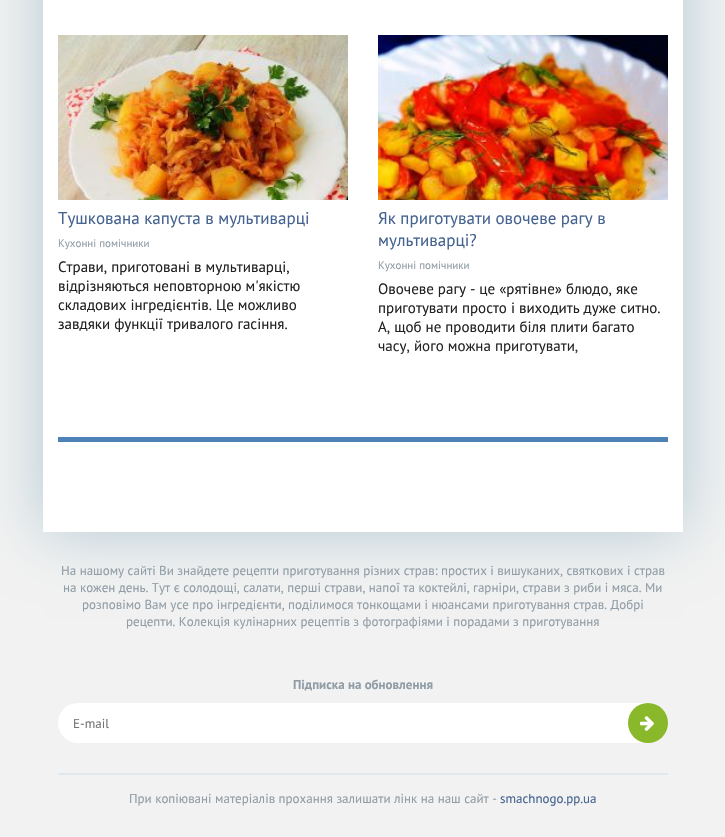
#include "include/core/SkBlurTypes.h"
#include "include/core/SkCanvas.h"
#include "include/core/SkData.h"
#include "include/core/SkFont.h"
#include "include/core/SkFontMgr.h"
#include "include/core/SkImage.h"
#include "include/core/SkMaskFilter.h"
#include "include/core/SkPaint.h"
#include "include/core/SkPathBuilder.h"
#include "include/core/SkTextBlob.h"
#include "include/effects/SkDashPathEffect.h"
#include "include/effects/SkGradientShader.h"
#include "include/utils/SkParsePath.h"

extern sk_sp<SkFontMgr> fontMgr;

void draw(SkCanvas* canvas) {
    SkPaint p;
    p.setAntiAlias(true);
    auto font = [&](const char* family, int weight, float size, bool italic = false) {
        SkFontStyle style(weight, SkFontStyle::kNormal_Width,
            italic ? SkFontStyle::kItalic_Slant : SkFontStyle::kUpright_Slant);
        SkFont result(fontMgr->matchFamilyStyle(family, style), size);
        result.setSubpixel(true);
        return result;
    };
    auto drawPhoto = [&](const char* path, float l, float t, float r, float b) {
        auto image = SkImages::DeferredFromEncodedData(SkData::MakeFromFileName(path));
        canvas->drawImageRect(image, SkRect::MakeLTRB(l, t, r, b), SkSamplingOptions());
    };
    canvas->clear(0xFFF2F2F2);
    p.setColor(0xFFB3CAD3);
    p.setMaskFilter(SkMaskFilter::MakeBlur(kNormal_SkBlurStyle, 30));
    canvas->drawRect(SkRect::MakeLTRB(43, -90, 683, 532), p);
    p.setMaskFilter(nullptr);
    p.setColor(0xFFFFFFFF);
    canvas->drawRect(SkRect::MakeLTRB(43, 0, 683, 532), p);
    drawPhoto("media/1.png", 58, 35, 348, 200);
    auto font1 = font("PT Sans", 400, 17);
    p.setColor(0xFF456390);
    canvas->drawString("Тушкована капуста в мультиварці", 58, 224, font1, p);
    auto font2 = font("PT Sans", 400, 11);
    p.setColor(0xFF919DA6);
    canvas->drawString("Кухонні помічники", 58, 247, font2, p);
    auto font3 = font("PT Sans", 400, 15);
    p.setColor(0xFF222222);
    {
        const struct { const char* s; float x, y; } items[] = {
            {"Страви, приготовані в мультиварці,", 58, 272},
            {"відрізняються неповторною м'якістю", 58, 291},
            {"складових інгредієнтів. Це можливо", 58, 310},
            {"завдяки функції тривалого гасіння.", 58, 329},
        };
        for (auto [s, x, y] : items) {
            canvas->drawString(s, x, y, font3, p);
        }
    }
    drawPhoto("media/2.png", 378, 35, 668, 200);
    p.setColor(0xFF456390);
    canvas->drawString("Як приготувати овочеве рагу в", 378, 224, font1, p);
    canvas->drawString("мультиварці?", 378, 246, font1, p);
    p.setColor(0xFF919DA6);
    canvas->drawString("Кухонні помічники", 378, 269, font2, p);
    p.setColor(0xFF222222);
    {
        const struct { const char* s; float x, y; } items[] = {
            {"Овочеве рагу - це «рятівне» блюдо, яке", 378, 294},
            {"приготувати просто і виходить дуже ситно.", 378, 313},
            {"А, щоб не проводити біля плити багато", 378, 332},
            {"часу, його можна приготувати,", 378, 351},
        };
        for (auto [s, x, y] : items) {
            canvas->drawString(s, x, y, font3, p);
        }
    }
    {
        const SkColor colors[] = {0x00FFFFFF, 0xFFFFFFFF};
        const float stops[] = {0, 1};
        const SkPoint ends[] = {{523, 347}, {523, 407}};
        p.setShader(SkGradientShader::MakeLinear(ends, colors, stops, 2, SkTileMode::kClamp));
        p.setAlpha(255);
    }
    canvas->drawRect(SkRect::MakeLTRB(382, 348, 577, 354), p);
    p.setShader(nullptr);
    p.setColor(0xFF4E81B6);
    canvas->drawRect(SkRect::MakeLTRB(58, 437, 668, 442), p);
    auto font4 = font("PT Sans", 400, 13);
    p.setColor(0xFF919DA6);
    {
        const struct { const char* s; float x, y; } items[] = {
            {"На нашому сайті Ви знайдете рецепти приготування різних страв: простих і вишуканих, святкових і страв", 61, 575},
            {"на кожен день. Тут є солодощі, салати, перші страви, напої та коктейлі, гарніри, страви з риби і мяса. Ми", 63, 592},
            {"розповімо Вам усе про інгредієнти, поділимося тонкощами і нюансами приготування страв. Добрі", 82, 609},
            {"рецепти. Колекція кулінарних рецептів з фотографіями і порадами з приготування", 126, 626},
        };
        for (auto [s, x, y] : items) {
            canvas->drawString(s, x, y, font4, p);
        }
    }
    auto font5 = font("PT Sans", 700, 13);
    canvas->drawString("Підписка на обновлення", 293, 689, font5, p);
    p.setColor(0xFFFFFFFF);
    canvas->drawRoundRect(SkRect::MakeLTRB(58, 703, 668, 743), 20, 20, p);
    p.setColor(0xFF757575);
    canvas->drawString("E-mail", 73, 728, font4, p);
    p.setColor(0xFF8AB82B);
    canvas->drawCircle(648, 723, 20, p);
    drawPhoto("media/3.png", 640, 716, 654, 731);
    p.setColor(0xFFDFE8EE);
    canvas->drawRect(SkRect::MakeLTRB(58, 773, 668, 775), p);
    p.setColor(0xFF919DA6);
    canvas->drawString("При копіювані матеріалів прохання залишати лінк на наш сайт -", 129, 803, font4, p);
    p.setColor(0xFF456390);
    canvas->drawString("smachnogo.pp.ua", 500, 803, font4, p);
}
